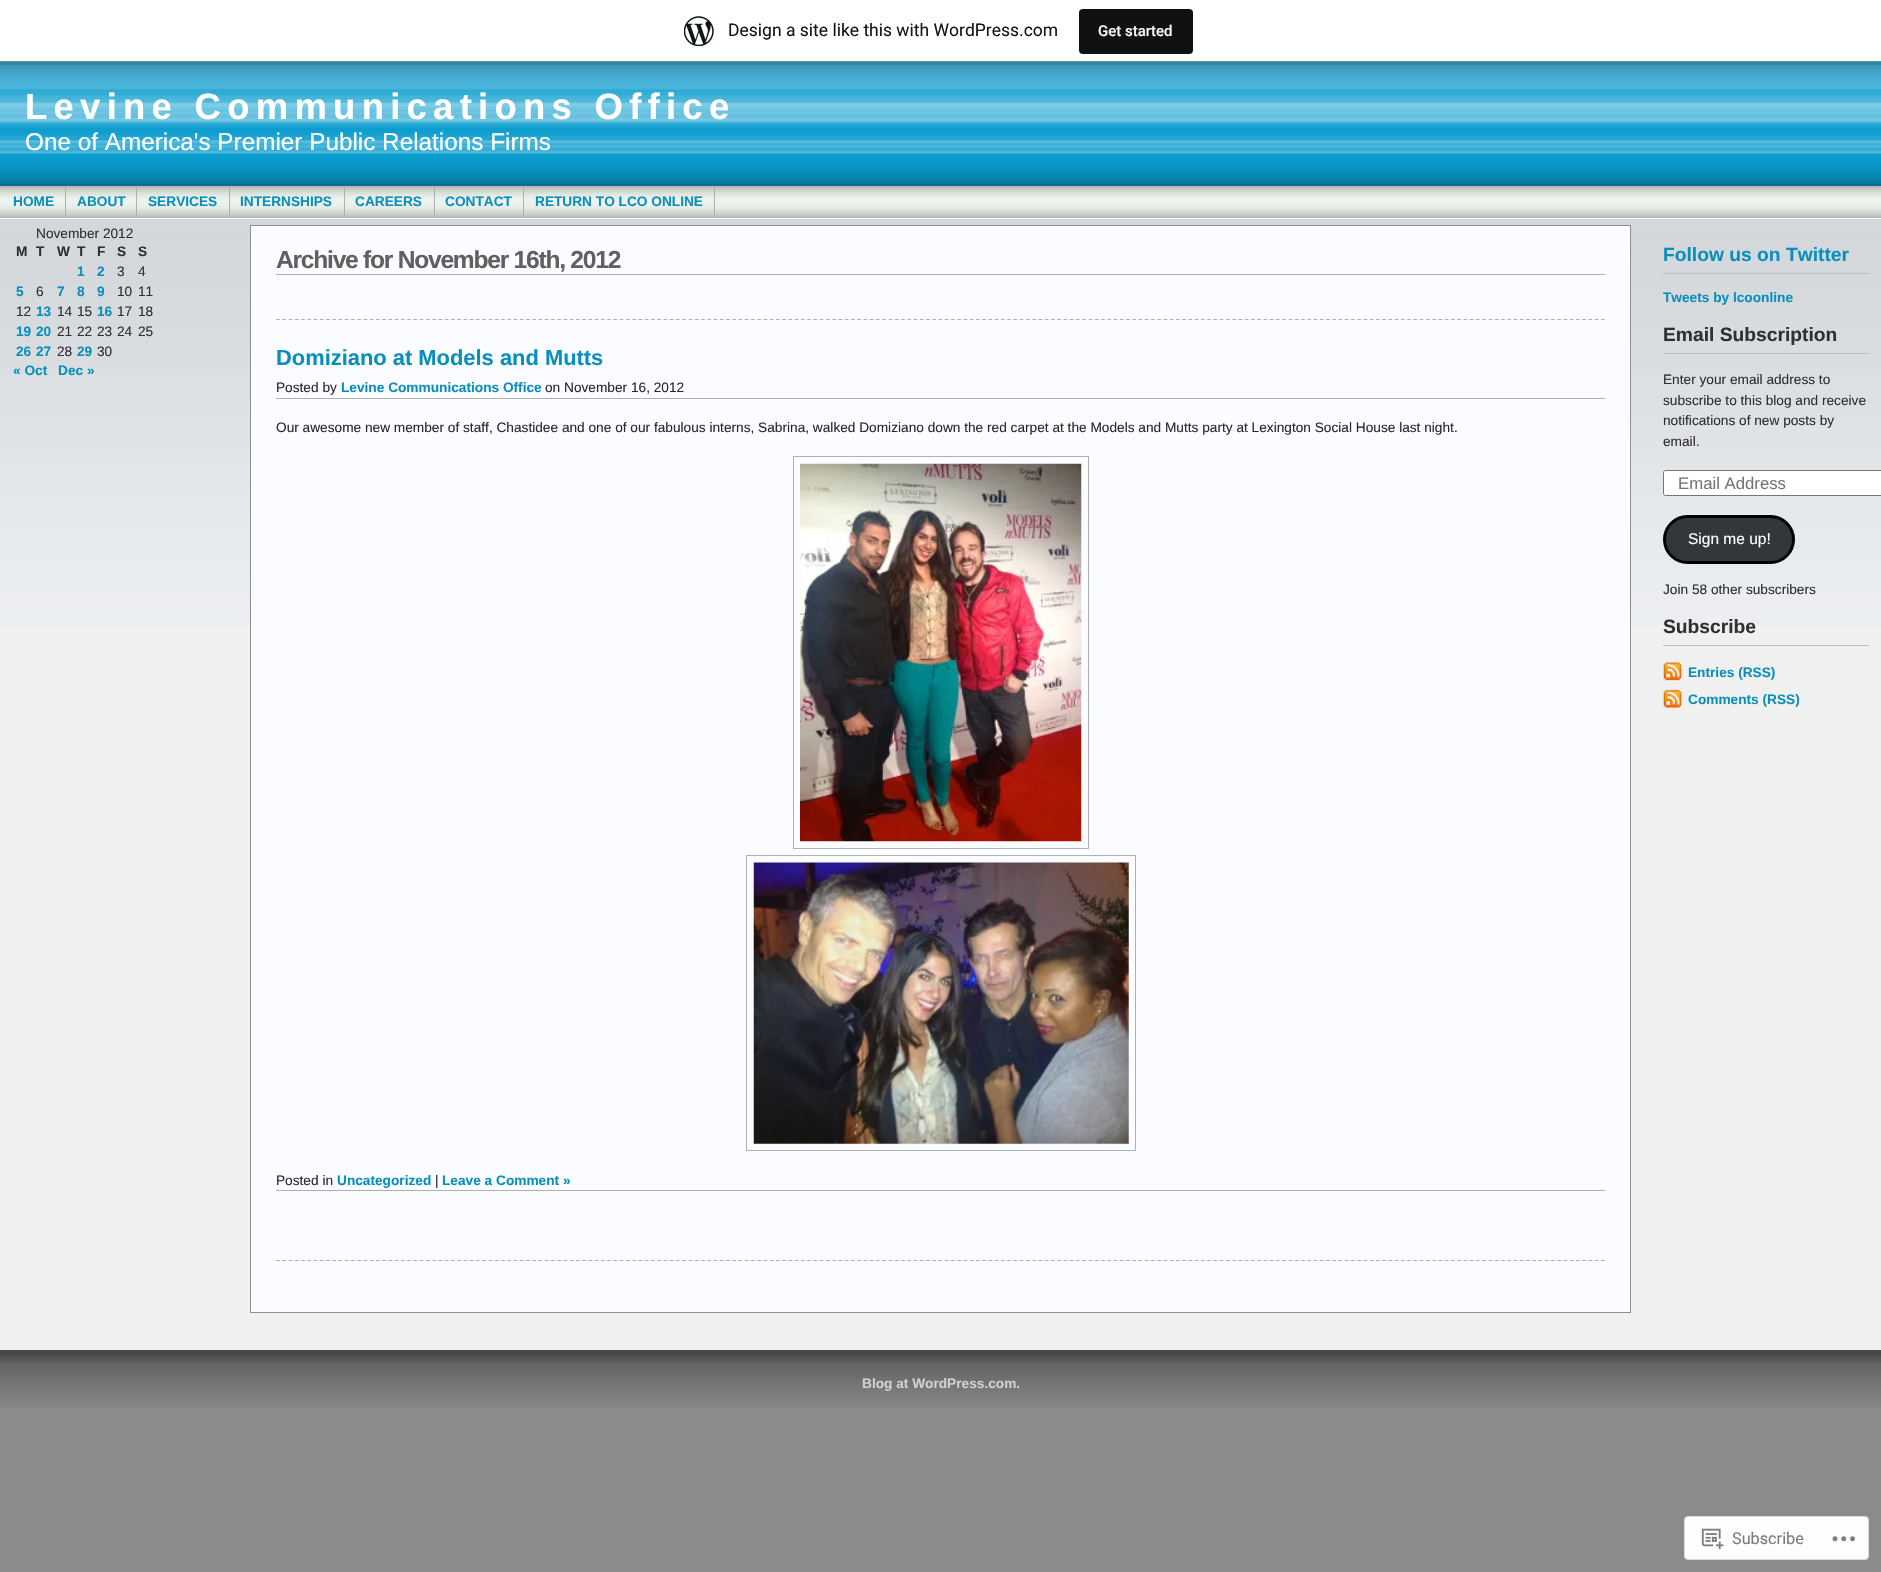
#include "include/core/SkBlurTypes.h"
#include "include/core/SkCanvas.h"
#include "include/core/SkData.h"
#include "include/core/SkFont.h"
#include "include/core/SkFontMgr.h"
#include "include/core/SkImage.h"
#include "include/core/SkMaskFilter.h"
#include "include/core/SkPaint.h"
#include "include/core/SkPathBuilder.h"
#include "include/core/SkTextBlob.h"
#include "include/effects/SkDashPathEffect.h"
#include "include/effects/SkGradientShader.h"
#include "include/utils/SkParsePath.h"

extern sk_sp<SkFontMgr> fontMgr;

void draw(SkCanvas* canvas) {
    SkPaint p;
    p.setAntiAlias(true);
    auto font = [&](const char* family, int weight, float size, bool italic = false) {
        SkFontStyle style(weight, SkFontStyle::kNormal_Width,
            italic ? SkFontStyle::kItalic_Slant : SkFontStyle::kUpright_Slant);
        SkFont result(fontMgr->matchFamilyStyle(family, style), size);
        result.setSubpixel(true);
        return result;
    };
    auto drawTracked = [&](const char* s, float x, float y, const SkFont& font, const SkPaint& ink, float letter, float word) {
        std::vector<SkGlyphID> glyphs(font.countText(s, strlen(s), SkTextEncoding::kUTF8));
        std::vector<float> xs(glyphs.size());
        font.textToGlyphs(s, strlen(s), SkTextEncoding::kUTF8, glyphs);
        font.getXPos(glyphs, xs, x);
        float extra = 0;
        for (size_t i = 0; i < glyphs.size(); i++) {
            xs[i] += extra;
            extra += letter + word * (glyphs[i] == font.unicharToGlyph(' '));
        }
        canvas->drawTextBlob(SkTextBlob::MakeFromPosHGlyphs(glyphs, xs, y, font), 0, 0, ink);
    };
    auto drawPhoto = [&](const char* path, float l, float t, float r, float b) {
        auto image = SkImages::DeferredFromEncodedData(SkData::MakeFromFileName(path));
        canvas->drawImageRect(image, SkRect::MakeLTRB(l, t, r, b), SkSamplingOptions());
    };
    canvas->clear(0xFF8B8B8B);
    p.setColor(0xFFF0F0F0);
    canvas->drawRect(SkRect::MakeLTRB(0, 61, 1881, 1350), p);
    drawPhoto("media/2.png", 0, 61, 1881, 625);
    p.setColor(0x14000000);
    canvas->drawPath(SkPathBuilder().moveTo(1, 61).lineTo(1, 65).lineTo(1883, 65).lineTo(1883, 4).lineTo(1881, 4).lineTo(1881, 61).close().detach(), p);
    p.setColor(0xFFFFFFFF);
    canvas->drawRect(SkRect::MakeLTRB(0, 0, 1881, 61), p);
    drawPhoto("media/1.png", 684, 16, 714, 46);
    auto font1 = font("Roboto", 400, 17.5f);
    p.setColor(0xFF171717);
    canvas->drawString("Design a site like this with WordPress.com", 728, 36, font1, p);
    p.setColor(0xFF111111);
    canvas->drawRoundRect(SkRect::MakeLTRB(1079, 9, 1193, 54), 4, 4, p);
    auto font2 = font("Roboto", 500, 15);
    p.setColor(0xFFF6F7F7);
    canvas->drawString("Get started", 1098, 36, font2, p);
    auto font3 = font("Liberation Sans", 700, 36.5f);
    p.setColor(0xFFFFFFFF);
    drawTracked("Levine Communications Office", 25, 119, font3, p, 6.25f, 0);
    auto font4 = font("Liberation Sans", 400, 24.3f);
    canvas->drawString("One of America's Premier Public Relations Firms", 25, 150, font4, p);
    p.setColor(0xFFB0B0B0);
    canvas->drawRect(SkRect::MakeLTRB(0, 186, 1881, 218), p);
    drawPhoto("media/3.png", 0, 186, 1881, 218);
    p.setColor(0xFFFFFFFF);
    canvas->drawRect(SkRect::MakeLTRB(0, 218, 1881, 219), p);
    auto font5 = font("Liberation Sans", 700, 13.68f);
    p.setColor(0xFF0A8FBC);
    canvas->drawString("HOME", 13, 206, font5, p);
    p.setColor(0xFFB0B0B0);
    canvas->drawRect(SkRect::MakeLTRB(65, 186, 66, 216), p);
    p.setColor(0xFF0A8FBC);
    canvas->drawString("ABOUT", 77, 206, font5, p);
    p.setColor(0xFFB0B0B0);
    canvas->drawRect(SkRect::MakeLTRB(136, 186, 137, 216), p);
    p.setColor(0xFF0A8FBC);
    canvas->drawString("SERVICES", 148, 206, font5, p);
    p.setColor(0xFFB0B0B0);
    canvas->drawRect(SkRect::MakeLTRB(229, 186, 230, 216), p);
    p.setColor(0xFF0A8FBC);
    canvas->drawString("INTERNSHIPS", 240, 206, font5, p);
    p.setColor(0xFFB0B0B0);
    canvas->drawRect(SkRect::MakeLTRB(344, 186, 345, 216), p);
    p.setColor(0xFF0A8FBC);
    canvas->drawString("CAREERS", 355, 206, font5, p);
    p.setColor(0xFFB0B0B0);
    canvas->drawRect(SkRect::MakeLTRB(434, 186, 435, 216), p);
    p.setColor(0xFF0A8FBC);
    canvas->drawString("CONTACT", 445, 206, font5, p);
    p.setColor(0xFFB0B0B0);
    canvas->drawRect(SkRect::MakeLTRB(523, 186, 524, 216), p);
    p.setColor(0xFF0A8FBC);
    canvas->drawString("RETURN TO LCO ONLINE", 535, 206, font5, p);
    p.setColor(0xFFB0B0B0);
    canvas->drawRect(SkRect::MakeLTRB(714, 186, 715, 216), p);
    auto font6 = font("Liberation Sans", 400, 13.68f);
    p.setColor(0xFF303030);
    canvas->drawString("November 2012", 36, 238, font6, p);
    {
        const struct { const char* s; float x, y; } items[] = {
            {"M", 16, 256},
            {"T", 36, 256},
            {"W", 57, 256},
            {"T", 77, 256},
            {"F", 97, 256},
            {"S", 117, 256},
            {"S", 138, 256},
        };
        for (auto [s, x, y] : items) {
            canvas->drawString(s, x, y, font5, p);
        }
    }
    p.setColor(0xFF0A8FBC);
    canvas->drawString("1", 77, 276, font5, p);
    canvas->drawString("2", 97, 276, font5, p);
    p.setColor(0xFF303030);
    canvas->drawString("3", 117, 276, font6, p);
    canvas->drawString("4", 138, 276, font6, p);
    p.setColor(0xFF0A8FBC);
    canvas->drawString("5", 16, 296, font5, p);
    p.setColor(0xFF303030);
    canvas->drawString("6", 36, 296, font6, p);
    p.setColor(0xFF0A8FBC);
    {
        const struct { const char* s; float x, y; } items[] = {
            {"7", 57, 296},
            {"8", 77, 296},
            {"9", 97, 296},
        };
        for (auto [s, x, y] : items) {
            canvas->drawString(s, x, y, font5, p);
        }
    }
    p.setColor(0xFF303030);
    {
        const struct { const char* s; float x, y; } items[] = {
            {"10", 117, 296},
            {"11", 138, 296},
            {"12", 16, 316},
        };
        for (auto [s, x, y] : items) {
            canvas->drawString(s, x, y, font6, p);
        }
    }
    p.setColor(0xFF0A8FBC);
    canvas->drawString("13", 36, 316, font5, p);
    p.setColor(0xFF303030);
    canvas->drawString("14", 57, 316, font6, p);
    canvas->drawString("15", 77, 316, font6, p);
    p.setColor(0xFF0A8FBC);
    canvas->drawString("16", 97, 316, font5, p);
    p.setColor(0xFF303030);
    canvas->drawString("17", 117, 316, font6, p);
    canvas->drawString("18", 138, 316, font6, p);
    p.setColor(0xFF0A8FBC);
    canvas->drawString("19", 16, 336, font5, p);
    canvas->drawString("20", 36, 336, font5, p);
    p.setColor(0xFF303030);
    {
        const struct { const char* s; float x, y; } items[] = {
            {"21", 57, 336},
            {"22", 77, 336},
            {"23", 97, 336},
            {"24", 117, 336},
            {"25", 138, 336},
        };
        for (auto [s, x, y] : items) {
            canvas->drawString(s, x, y, font6, p);
        }
    }
    p.setColor(0xFF0A8FBC);
    canvas->drawString("26", 16, 356, font5, p);
    canvas->drawString("27", 36, 356, font5, p);
    p.setColor(0xFF303030);
    canvas->drawString("28", 57, 356, font6, p);
    p.setColor(0xFF0A8FBC);
    canvas->drawString("29", 77, 356, font5, p);
    p.setColor(0xFF303030);
    canvas->drawString("30", 97, 356, font6, p);
    p.setColor(0xFF0A8FBC);
    canvas->drawString("« Oct", 13, 375, font5, p);
    canvas->drawString("Dec »", 58, 375, font5, p);
    p.setColor(0xFFFAFCFF);
    canvas->drawRect(SkRect::MakeLTRB(250.5f, 225.5f, 1630.5f, 1312.5f), p);
    p.setStyle(SkPaint::kStroke_Style);
    p.setStrokeWidth(1);
    p.setColor(0xFF909090);
    canvas->drawRect(SkRect::MakeLTRB(250.5f, 225.5f, 1630.5f, 1312.5f), p);
    p.setStyle(SkPaint::kFill_Style);
    p.setColor(0xFFB0B0B0);
    canvas->drawRect(SkRect::MakeLTRB(276, 274, 1605, 275), p);
    auto font7 = font("Liberation Sans", 700, 24.6f);
    p.setColor(0xFF606060);
    drawTracked("Archive for November 16th, 2012", 276, 268, font7, p, -1.25f, 0);
    p.setStyle(SkPaint::kStroke_Style);
    p.setStrokeWidth(1.2f);
    p.setColor(0xFFB0B0B0);
    p.setPathEffect(SkDashPathEffect::Make({{3.75f, 2.5f}}, 0));
    canvas->drawPath(SkPathBuilder().moveTo(276, 319.5f).lineTo(1605, 319.5f).detach(), p);
    p.setPathEffect(nullptr);
    auto font8 = font("Liberation Sans", 700, 21.9f);
    p.setStyle(SkPaint::kFill_Style);
    p.setColor(0xFF0A8FBC);
    canvas->drawString("Domiziano at Models and Mutts", 276, 365, font8, p);
    p.setColor(0xFFB0B0B0);
    canvas->drawRect(SkRect::MakeLTRB(276, 398, 1605, 399), p);
    p.setColor(0xFF2A2A2A);
    canvas->drawString("Posted by", 276, 392, font6, p);
    p.setColor(0xFF0A8FBC);
    canvas->drawString("Levine Communications Office", 341, 392, font5, p);
    p.setColor(0xFF2A2A2A);
    canvas->drawString("on November 16, 2012", 545, 392, font6, p);
    canvas->drawString("Our awesome new member of staff, Chastidee and one of our fabulous interns, Sabrina, walked Domiziano down the red carpet at the Models and Mutts party at Lexington Social House last night.", 276, 432, font6, p);
    p.setStyle(SkPaint::kStroke_Style);
    p.setStrokeWidth(1);
    p.setColor(0xFFB0B0B0);
    canvas->drawRect(SkRect::MakeLTRB(793.5f, 456.5f, 1088.5f, 848.5f), p);
    drawPhoto("media/4.png", 800, 463, 1082, 842);
    canvas->drawRect(SkRect::MakeLTRB(746.5f, 855.5f, 1135.5f, 1150.5f), p);
    drawPhoto("media/5.png", 753, 862, 1129, 1144);
    p.setStyle(SkPaint::kFill_Style);
    canvas->drawRect(SkRect::MakeLTRB(276, 1190, 1605, 1191), p);
    p.setColor(0xFF2A2A2A);
    canvas->drawString("Posted in", 276, 1185, font6, p);
    p.setColor(0xFF0A8FBC);
    canvas->drawString("Uncategorized", 337, 1185, font5, p);
    p.setColor(0xFF2A2A2A);
    canvas->drawString("|", 435, 1185, font6, p);
    p.setColor(0xFF0A8FBC);
    canvas->drawString("Leave a Comment »", 442, 1185, font5, p);
    p.setStyle(SkPaint::kStroke_Style);
    p.setStrokeWidth(1.2f);
    p.setColor(0xFFB0B0B0);
    p.setPathEffect(SkDashPathEffect::Make({{3.75f, 2.5f}}, 0));
    canvas->drawPath(SkPathBuilder().moveTo(276, 1260.5f).lineTo(1605, 1260.5f).detach(), p);
    p.setPathEffect(nullptr);
    p.setStyle(SkPaint::kFill_Style);
    p.setColor(0xFFBEBFC3);
    canvas->drawRect(SkRect::MakeLTRB(1663, 273, 1869, 274), p);
    auto font9 = font("Liberation Sans", 700, 19.25f);
    p.setColor(0xFF0A8FBC);
    canvas->drawString("Follow us on Twitter", 1663, 261, font9, p);
    canvas->drawString("Tweets by lcoonline", 1663, 302, font5, p);
    p.setColor(0xFFBEBFC3);
    canvas->drawRect(SkRect::MakeLTRB(1663, 353, 1869, 354), p);
    p.setColor(0xFF303030);
    canvas->drawString("Email Subscription", 1663, 341, font9, p);
    {
        const struct { const char* s; float x, y; } items[] = {
            {"Enter your email address to", 1663, 384},
            {"subscribe to this blog and receive", 1663, 405},
            {"notifications of new posts by", 1663, 425},
            {"email.", 1663, 446},
        };
        for (auto [s, x, y] : items) {
            canvas->drawString(s, x, y, font6, p);
        }
    }
    p.setColor(0xFFFFFFFF);
    canvas->drawPath(SkPathBuilder().moveTo(1665.5f, 470).lineTo(1881, 470).lineTo(1881, 496).lineTo(1665.5f, 496).cubicTo(1664, 496, 1663, 495, 1663, 493.5f).lineTo(1663, 472.5f).cubicTo(1663, 471, 1664, 470, 1665.5f, 470).close().detach(), p);
    p.setStyle(SkPaint::kStroke_Style);
    p.setStrokeWidth(1);
    p.setColor(0xFF767676);
    canvas->drawRoundRect(SkRect::MakeLTRB(1663.5f, 470.5f, 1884.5f, 495.5f), 2, 2, p);
    auto font10 = font("Liberation Sans", 400, 16.75f);
    p.setStyle(SkPaint::kFill_Style);
    p.setColor(0xFF757575);
    canvas->drawString("Email Address", 1678, 489, font10, p);
    p.setColor(0xFF32373C);
    canvas->drawRoundRect(SkRect::MakeLTRB(1664.5f, 516.5f, 1793.5f, 562.5f), 23, 23, p);
    p.setStyle(SkPaint::kStroke_Style);
    p.setStrokeWidth(3);
    p.setColor(0xFF000000);
    canvas->drawRoundRect(SkRect::MakeLTRB(1664.5f, 516.5f, 1793.5f, 562.5f), 23, 23, p);
    auto font11 = font("Liberation Sans", 400, 15.5f);
    p.setStyle(SkPaint::kFill_Style);
    p.setColor(0xFFFFFFFF);
    canvas->drawString("Sign me up!", 1688, 544, font11, p);
    p.setColor(0xFF303030);
    canvas->drawString("Join 58 other subscribers", 1663, 594, font6, p);
    p.setColor(0xFFBEBFC3);
    canvas->drawRect(SkRect::MakeLTRB(1663, 645, 1869, 646), p);
    p.setColor(0xFF303030);
    canvas->drawString("Subscribe", 1663, 633, font9, p);
    drawPhoto("media/6.png", 1663, 662, 1682, 681);
    p.setColor(0xFF0A8FBC);
    canvas->drawString("Entries (RSS)", 1688, 677, font5, p);
    drawPhoto("media/7.png", 1663, 689, 1682, 708);
    canvas->drawString("Comments (RSS)", 1688, 704, font5, p);
    drawPhoto("media/8.png", 0, 1350, 1881, 1408);
    p.setColor(0xFFD0D0D0);
    canvas->drawString("Blog at WordPress.com.", 862, 1388, font5, p);
    p.setColor(0xFFFDFDFD);
    canvas->drawRoundRect(SkRect::MakeLTRB(1684.5f, 1516.5f, 1868.5f, 1559.5f), 3.5f, 3.5f, p);
    p.setStyle(SkPaint::kStroke_Style);
    p.setStrokeWidth(1);
    p.setColor(0xFFDADADC);
    canvas->drawRoundRect(SkRect::MakeLTRB(1684.5f, 1516.5f, 1868.5f, 1559.5f), 3.5f, 3.5f, p);
    drawPhoto("media/9.png", 1701, 1528, 1724, 1550);
    auto font12 = font("Roboto", 400, 16.25f);
    p.setStyle(SkPaint::kFill_Style);
    p.setColor(0xFF787C82);
    canvas->drawString("Subscribe", 1732, 1544, font12, p);
    drawPhoto("media/10.png", 1832, 1536, 1855, 1542);
}
